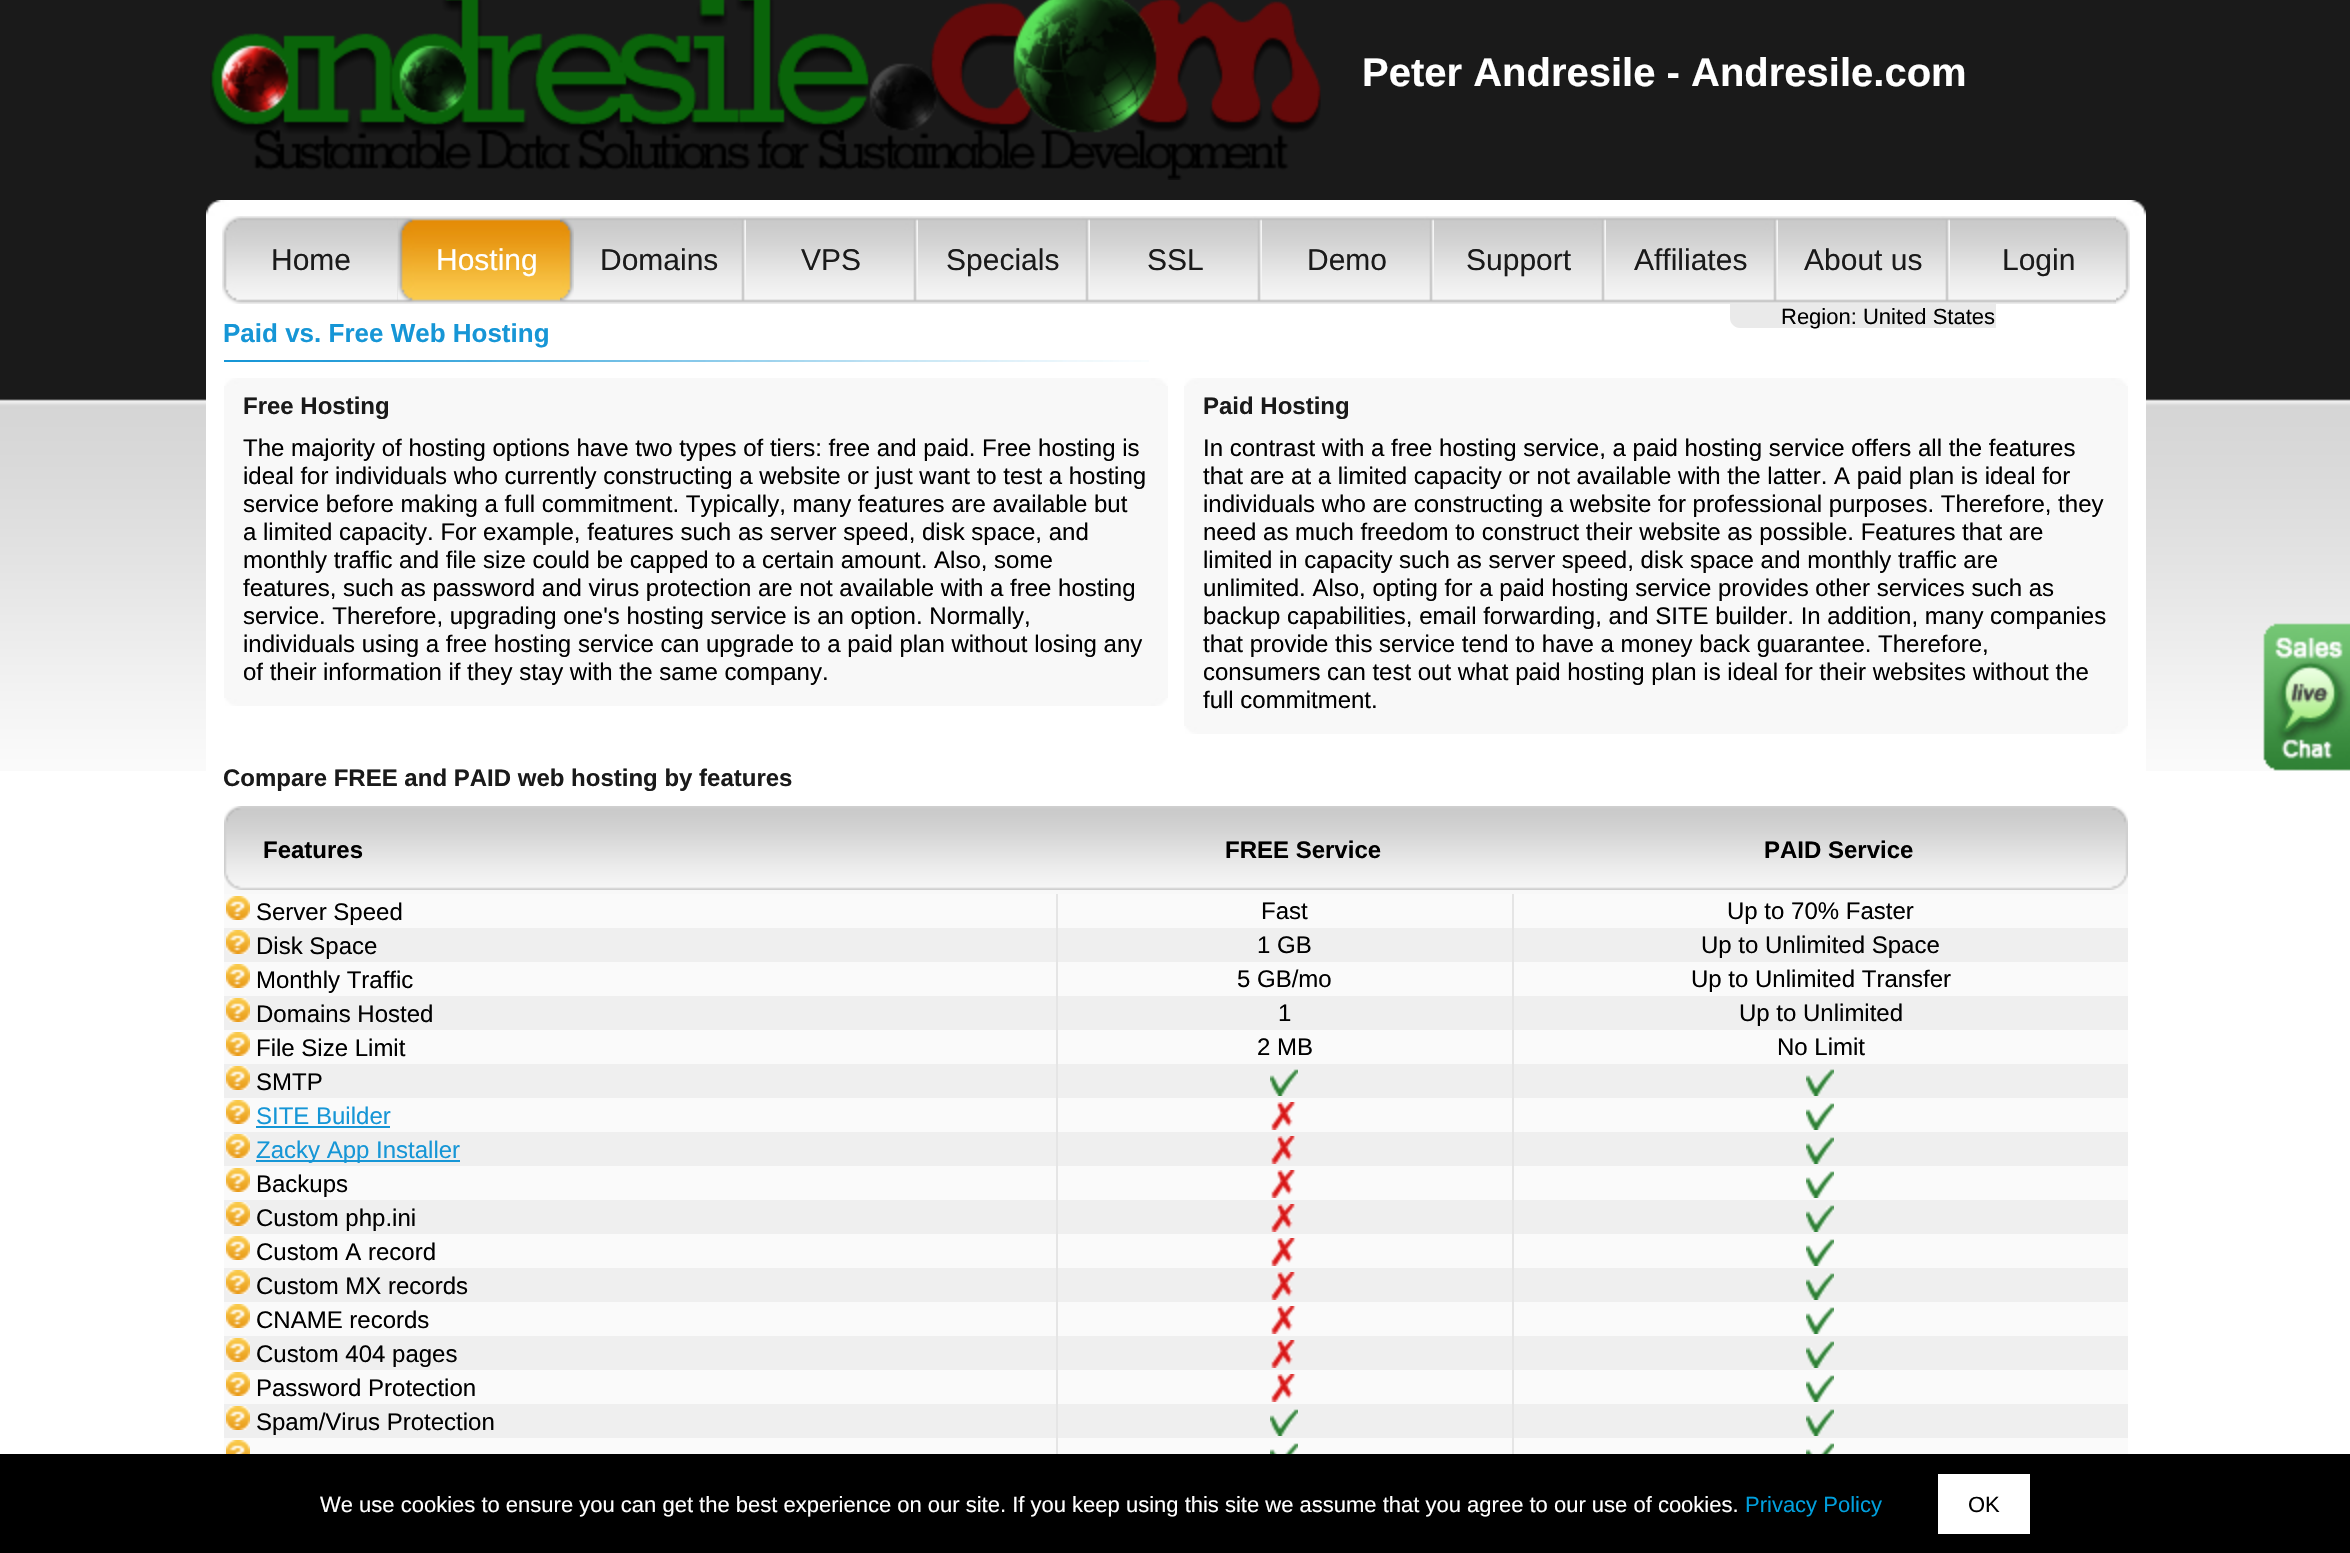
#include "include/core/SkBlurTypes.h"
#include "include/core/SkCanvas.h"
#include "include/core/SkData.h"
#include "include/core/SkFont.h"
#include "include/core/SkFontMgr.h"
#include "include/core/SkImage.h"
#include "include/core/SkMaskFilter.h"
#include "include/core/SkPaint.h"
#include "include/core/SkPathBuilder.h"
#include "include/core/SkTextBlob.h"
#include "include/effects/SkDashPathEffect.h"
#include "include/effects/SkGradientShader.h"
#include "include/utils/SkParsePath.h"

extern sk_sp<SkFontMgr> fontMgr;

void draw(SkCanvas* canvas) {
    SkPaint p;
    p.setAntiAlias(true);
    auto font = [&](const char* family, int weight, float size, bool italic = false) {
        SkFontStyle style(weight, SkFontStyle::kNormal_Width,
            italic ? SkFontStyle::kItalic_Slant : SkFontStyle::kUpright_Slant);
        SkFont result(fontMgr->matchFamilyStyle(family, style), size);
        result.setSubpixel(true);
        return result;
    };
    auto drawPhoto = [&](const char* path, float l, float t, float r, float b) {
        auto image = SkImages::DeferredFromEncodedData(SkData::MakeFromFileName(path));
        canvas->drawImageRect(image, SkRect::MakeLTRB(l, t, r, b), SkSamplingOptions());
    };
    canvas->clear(0xFF1A1A1A);
    drawPhoto("media/1.png", 210, 0, 1321, 180);
    auto font1 = font("Liberation Sans", 700, 40);
    p.setColor(0xFFFFFFFF);
    canvas->drawString("Peter Andresile - Andresile.com", 1362, 86, font1, p);
    canvas->drawRect(SkRect::MakeLTRB(0, 771, 2350, 1454), p);
    drawPhoto("media/2.png", 0, 200, 2350, 771);
    canvas->drawRect(SkRect::MakeLTRB(206, 216, 2146, 771), p);
    drawPhoto("media/3.png", 206, 200, 2146, 216);
    drawPhoto("media/4.png", 388, 216, 398, 304);
    drawPhoto("media/5.png", 222, 216, 388, 304);
    auto font2 = font("Liberation Sans", 400, 30);
    p.setColor(0xFF1A1A1A);
    canvas->drawString("Home", 271, 270, font2, p);
    drawPhoto("media/6.png", 560, 216, 574, 304);
    drawPhoto("media/7.png", 398, 216, 560, 304);
    p.setColor(0xFFFFFFFF);
    canvas->drawString("Hosting", 436, 270, font2, p);
    drawPhoto("media/8.png", 732, 216, 746, 304);
    drawPhoto("media/9.png", 574, 216, 732, 304);
    p.setColor(0xFF1A1A1A);
    canvas->drawString("Domains", 600, 270, font2, p);
    drawPhoto("media/8.png", 904, 216, 918, 304);
    drawPhoto("media/9.png", 746, 216, 904, 304);
    canvas->drawString("VPS", 801, 270, font2, p);
    drawPhoto("media/8.png", 1076, 216, 1090, 304);
    drawPhoto("media/9.png", 918, 216, 1076, 304);
    canvas->drawString("Specials", 946, 270, font2, p);
    drawPhoto("media/8.png", 1248, 216, 1262, 304);
    drawPhoto("media/9.png", 1090, 216, 1248, 304);
    canvas->drawString("SSL", 1147, 270, font2, p);
    drawPhoto("media/8.png", 1420, 216, 1434, 304);
    drawPhoto("media/9.png", 1262, 216, 1420, 304);
    canvas->drawString("Demo", 1307, 270, font2, p);
    drawPhoto("media/8.png", 1592, 216, 1606, 304);
    drawPhoto("media/9.png", 1434, 216, 1592, 304);
    canvas->drawString("Support", 1466, 270, font2, p);
    drawPhoto("media/8.png", 1764, 216, 1778, 304);
    drawPhoto("media/9.png", 1606, 216, 1764, 304);
    canvas->drawString("Affiliates", 1634, 270, font2, p);
    drawPhoto("media/8.png", 1936, 216, 1950, 304);
    drawPhoto("media/9.png", 1778, 216, 1936, 304);
    canvas->drawString("About us", 1804, 270, font2, p);
    drawPhoto("media/10.png", 1950, 216, 2130, 304);
    drawPhoto("media/11.png", 2113, 216, 2116, 304);
    canvas->drawString("Login", 2002, 270, font2, p);
    p.setColor(0xFFEAEAEA);
    canvas->drawPath(SkPathBuilder().moveTo(1730, 304).lineTo(1856, 304).lineTo(1856, 328).lineTo(1740, 328).cubicTo(1734.5f, 328, 1730, 323.5f, 1730, 318).close().detach(), p);
    canvas->drawRect(SkRect::MakeLTRB(1856, 304, 1996, 328), p);
    auto font3 = font("Liberation Sans", 400, 22);
    p.setColor(0xFF000000);
    canvas->drawString("Region: United States", 1781, 324, font3, p);
    drawPhoto("media/12.png", 224, 360, 1149, 362);
    auto font4 = font("Liberation Sans", 700, 26);
    p.setColor(0xFF1696D6);
    canvas->drawString("Paid vs. Free Web Hosting", 223, 342, font4, p);
    p.setColor(0xFFF8F8F8);
    canvas->drawRect(SkRect::MakeLTRB(224, 386, 1168, 698), p);
    drawPhoto("media/13.png", 224, 698, 1168, 706);
    drawPhoto("media/14.png", 224, 378, 1168, 386);
    auto font5 = font("Liberation Sans", 700, 24);
    p.setColor(0xFF1A1A1A);
    canvas->drawString("Free Hosting", 243, 414, font5, p);
    auto font6 = font("Liberation Sans", 400, 24);
    p.setColor(0xFF000000);
    {
        const struct { const char* s; float x, y; } items[] = {
            {"The majority of hosting options have two types of tiers: free and paid. Free hosting is", 243, 456},
            {"ideal for individuals who currently constructing a website or just want to test a hosting", 243, 484},
            {"service before making a full commitment. Typically, many features are available but", 243, 512},
            {"a limited capacity. For example, features such as server speed, disk space, and", 243, 540},
            {"monthly traffic and file size could be capped to a certain amount. Also, some", 243, 568},
            {"features, such as password and virus protection are not available with a free hosting", 243, 596},
            {"service. Therefore, upgrading one's hosting service is an option. Normally,", 243, 624},
            {"individuals using a free hosting service can upgrade to a paid plan without losing any", 243, 652},
            {"of their information if they stay with the same company.", 243, 680},
        };
        for (auto [s, x, y] : items) {
            canvas->drawString(s, x, y, font6, p);
        }
    }
    p.setColor(0xFFF8F8F8);
    canvas->drawRect(SkRect::MakeLTRB(1184, 386, 2128, 726), p);
    drawPhoto("media/13.png", 1184, 726, 2128, 734);
    drawPhoto("media/14.png", 1184, 378, 2128, 386);
    p.setColor(0xFF1A1A1A);
    canvas->drawString("Paid Hosting", 1203, 414, font5, p);
    p.setColor(0xFF000000);
    {
        const struct { const char* s; float x, y; } items[] = {
            {"In contrast with a free hosting service, a paid hosting service offers all the features", 1203, 456},
            {"that are at a limited capacity or not available with the latter. A paid plan is ideal for", 1203, 484},
            {"individuals who are constructing a website for professional purposes. Therefore, they", 1203, 512},
            {"need as much freedom to construct their website as possible. Features that are", 1203, 540},
            {"limited in capacity such as server speed, disk space and monthly traffic are", 1203, 568},
            {"unlimited. Also, opting for a paid hosting service provides other services such as", 1203, 596},
            {"backup capabilities, email forwarding, and SITE builder. In addition, many companies", 1203, 624},
            {"that provide this service tend to have a money back guarantee. Therefore,", 1203, 652},
            {"consumers can test out what paid hosting plan is ideal for their websites without the", 1203, 680},
            {"full commitment.", 1203, 708},
        };
        for (auto [s, x, y] : items) {
            canvas->drawString(s, x, y, font6, p);
        }
    }
    p.setColor(0xFF1A1A1A);
    canvas->drawString("Compare FREE and PAID web hosting by features", 223, 786, font5, p);
    p.setColor(0xFFF8F8F8);
    canvas->drawRect(SkRect::MakeLTRB(224, 879, 2128, 894), p);
    drawPhoto("media/15.png", 224, 806, 2128, 890);
    p.setColor(0xFF000000);
    {
        const struct { const char* s; float x, y; } items[] = {
            {"Features", 263, 858},
            {"FREE Service", 1225, 858},
            {"PAID Service", 1764, 858},
        };
        for (auto [s, x, y] : items) {
            canvas->drawString(s, x, y, font5, p);
        }
    }
    p.setColor(0xFFFAFAFA);
    canvas->drawRect(SkRect::MakeLTRB(224, 894, 1056, 928), p);
    drawPhoto("media/16.png", 226, 896, 250, 920);
    p.setColor(0xFF000000);
    canvas->drawString("Server Speed", 256, 920, font6, p);
    p.setColor(0xFFFAFAFA);
    canvas->drawRect(SkRect::MakeLTRB(1058, 894, 1512, 928), p);
    p.setColor(0xFFE5E5E5);
    canvas->drawRect(SkRect::MakeLTRB(1056, 894, 1058, 1454), p);
    p.setColor(0xFF000000);
    canvas->drawString("Fast", 1261, 919, font6, p);
    p.setColor(0xFFFAFAFA);
    canvas->drawRect(SkRect::MakeLTRB(1514, 894, 2128, 928), p);
    p.setColor(0xFFE5E5E5);
    canvas->drawRect(SkRect::MakeLTRB(1512, 894, 1514, 1454), p);
    p.setColor(0xFF000000);
    canvas->drawString("Up to 70% Faster", 1727, 919, font6, p);
    p.setColor(0xFFEFEFEF);
    canvas->drawRect(SkRect::MakeLTRB(224, 928, 1056, 962), p);
    drawPhoto("media/17.png", 226, 930, 250, 954);
    p.setColor(0xFF000000);
    canvas->drawString("Disk Space", 256, 954, font6, p);
    p.setColor(0xFFEFEFEF);
    canvas->drawRect(SkRect::MakeLTRB(1058, 928, 1512, 962), p);
    p.setColor(0xFF000000);
    canvas->drawString("1 GB", 1257, 953, font6, p);
    p.setColor(0xFFEFEFEF);
    canvas->drawRect(SkRect::MakeLTRB(1514, 928, 2128, 962), p);
    p.setColor(0xFF000000);
    canvas->drawString("Up to Unlimited Space", 1701, 953, font6, p);
    p.setColor(0xFFFAFAFA);
    canvas->drawRect(SkRect::MakeLTRB(224, 962, 1056, 996), p);
    drawPhoto("media/16.png", 226, 964, 250, 988);
    p.setColor(0xFF000000);
    canvas->drawString("Monthly Traffic", 256, 988, font6, p);
    p.setColor(0xFFFAFAFA);
    canvas->drawRect(SkRect::MakeLTRB(1058, 962, 1512, 996), p);
    p.setColor(0xFF000000);
    canvas->drawString("5 GB/mo", 1237, 987, font6, p);
    p.setColor(0xFFFAFAFA);
    canvas->drawRect(SkRect::MakeLTRB(1514, 962, 2128, 996), p);
    p.setColor(0xFF000000);
    canvas->drawString("Up to Unlimited Transfer", 1691, 987, font6, p);
    p.setColor(0xFFEFEFEF);
    canvas->drawRect(SkRect::MakeLTRB(224, 996, 1056, 1030), p);
    drawPhoto("media/17.png", 226, 998, 250, 1022);
    p.setColor(0xFF000000);
    canvas->drawString("Domains Hosted", 256, 1022, font6, p);
    p.setColor(0xFFEFEFEF);
    canvas->drawRect(SkRect::MakeLTRB(1058, 996, 1512, 1030), p);
    p.setColor(0xFF000000);
    canvas->drawString("1", 1278, 1021, font6, p);
    p.setColor(0xFFEFEFEF);
    canvas->drawRect(SkRect::MakeLTRB(1514, 996, 2128, 1030), p);
    p.setColor(0xFF000000);
    canvas->drawString("Up to Unlimited", 1739, 1021, font6, p);
    p.setColor(0xFFFAFAFA);
    canvas->drawRect(SkRect::MakeLTRB(224, 1030, 1056, 1064), p);
    drawPhoto("media/16.png", 226, 1032, 250, 1056);
    p.setColor(0xFF000000);
    canvas->drawString("File Size Limit", 256, 1056, font6, p);
    p.setColor(0xFFFAFAFA);
    canvas->drawRect(SkRect::MakeLTRB(1058, 1030, 1512, 1064), p);
    p.setColor(0xFF000000);
    canvas->drawString("2 MB", 1257, 1055, font6, p);
    p.setColor(0xFFFAFAFA);
    canvas->drawRect(SkRect::MakeLTRB(1514, 1030, 2128, 1064), p);
    p.setColor(0xFF000000);
    canvas->drawString("No Limit", 1777, 1055, font6, p);
    p.setColor(0xFFEFEFEF);
    canvas->drawRect(SkRect::MakeLTRB(224, 1064, 1056, 1098), p);
    drawPhoto("media/17.png", 226, 1066, 250, 1090);
    p.setColor(0xFF000000);
    canvas->drawString("SMTP", 256, 1090, font6, p);
    p.setColor(0xFFEFEFEF);
    canvas->drawRect(SkRect::MakeLTRB(1058, 1064, 1512, 1098), p);
    drawPhoto("media/18.png", 1270, 1069, 1298, 1096);
    canvas->drawRect(SkRect::MakeLTRB(1514, 1064, 2128, 1098), p);
    drawPhoto("media/18.png", 1806, 1069, 1834, 1096);
    p.setColor(0xFFFAFAFA);
    canvas->drawRect(SkRect::MakeLTRB(224, 1098, 1056, 1132), p);
    drawPhoto("media/16.png", 226, 1100, 250, 1124);
    p.setColor(0xFF1696D6);
    canvas->drawString("SITE Builder", 256, 1124, font6, p);
    canvas->drawRect(SkRect::MakeLTRB(256, 1126, 390, 1128), p);
    p.setColor(0xFFFAFAFA);
    canvas->drawRect(SkRect::MakeLTRB(1058, 1098, 1512, 1132), p);
    drawPhoto("media/19.png", 1271, 1102, 1296, 1130);
    canvas->drawRect(SkRect::MakeLTRB(1514, 1098, 2128, 1132), p);
    drawPhoto("media/20.png", 1806, 1103, 1834, 1130);
    p.setColor(0xFFEFEFEF);
    canvas->drawRect(SkRect::MakeLTRB(224, 1132, 1056, 1166), p);
    drawPhoto("media/17.png", 226, 1134, 250, 1158);
    p.setColor(0xFF1696D6);
    canvas->drawRect(SkRect::MakeLTRB(256, 1160, 460, 1162), p);
    canvas->drawString("Zacky App Installer", 256, 1158, font6, p);
    p.setColor(0xFFEFEFEF);
    canvas->drawRect(SkRect::MakeLTRB(1058, 1132, 1512, 1166), p);
    drawPhoto("media/21.png", 1271, 1136, 1296, 1164);
    canvas->drawRect(SkRect::MakeLTRB(1514, 1132, 2128, 1166), p);
    drawPhoto("media/18.png", 1806, 1137, 1834, 1164);
    p.setColor(0xFFFAFAFA);
    canvas->drawRect(SkRect::MakeLTRB(224, 1166, 1056, 1200), p);
    drawPhoto("media/16.png", 226, 1168, 250, 1192);
    p.setColor(0xFF000000);
    canvas->drawString("Backups", 256, 1192, font6, p);
    p.setColor(0xFFFAFAFA);
    canvas->drawRect(SkRect::MakeLTRB(1058, 1166, 1512, 1200), p);
    drawPhoto("media/19.png", 1271, 1170, 1296, 1198);
    canvas->drawRect(SkRect::MakeLTRB(1514, 1166, 2128, 1200), p);
    drawPhoto("media/20.png", 1806, 1171, 1834, 1198);
    p.setColor(0xFFEFEFEF);
    canvas->drawRect(SkRect::MakeLTRB(224, 1200, 1056, 1234), p);
    drawPhoto("media/17.png", 226, 1202, 250, 1226);
    p.setColor(0xFF000000);
    canvas->drawString("Custom php.ini", 256, 1226, font6, p);
    p.setColor(0xFFEFEFEF);
    canvas->drawRect(SkRect::MakeLTRB(1058, 1200, 1512, 1234), p);
    drawPhoto("media/21.png", 1271, 1204, 1296, 1232);
    canvas->drawRect(SkRect::MakeLTRB(1514, 1200, 2128, 1234), p);
    drawPhoto("media/18.png", 1806, 1205, 1834, 1232);
    p.setColor(0xFFFAFAFA);
    canvas->drawRect(SkRect::MakeLTRB(224, 1234, 1056, 1268), p);
    drawPhoto("media/16.png", 226, 1236, 250, 1260);
    p.setColor(0xFF000000);
    canvas->drawString("Custom A record", 256, 1260, font6, p);
    p.setColor(0xFFFAFAFA);
    canvas->drawRect(SkRect::MakeLTRB(1058, 1234, 1512, 1268), p);
    drawPhoto("media/19.png", 1271, 1238, 1296, 1266);
    canvas->drawRect(SkRect::MakeLTRB(1514, 1234, 2128, 1268), p);
    drawPhoto("media/20.png", 1806, 1239, 1834, 1266);
    p.setColor(0xFFEFEFEF);
    canvas->drawRect(SkRect::MakeLTRB(224, 1268, 1056, 1302), p);
    drawPhoto("media/17.png", 226, 1270, 250, 1294);
    p.setColor(0xFF000000);
    canvas->drawString("Custom MX records", 256, 1294, font6, p);
    p.setColor(0xFFEFEFEF);
    canvas->drawRect(SkRect::MakeLTRB(1058, 1268, 1512, 1302), p);
    drawPhoto("media/21.png", 1271, 1272, 1296, 1300);
    canvas->drawRect(SkRect::MakeLTRB(1514, 1268, 2128, 1302), p);
    drawPhoto("media/18.png", 1806, 1273, 1834, 1300);
    p.setColor(0xFFFAFAFA);
    canvas->drawRect(SkRect::MakeLTRB(224, 1302, 1056, 1336), p);
    drawPhoto("media/16.png", 226, 1304, 250, 1328);
    p.setColor(0xFF000000);
    canvas->drawString("CNAME records", 256, 1328, font6, p);
    p.setColor(0xFFFAFAFA);
    canvas->drawRect(SkRect::MakeLTRB(1058, 1302, 1512, 1336), p);
    drawPhoto("media/19.png", 1271, 1306, 1296, 1334);
    canvas->drawRect(SkRect::MakeLTRB(1514, 1302, 2128, 1336), p);
    drawPhoto("media/20.png", 1806, 1307, 1834, 1334);
    p.setColor(0xFFEFEFEF);
    canvas->drawRect(SkRect::MakeLTRB(224, 1336, 1056, 1370), p);
    drawPhoto("media/17.png", 226, 1338, 250, 1362);
    p.setColor(0xFF000000);
    canvas->drawString("Custom 404 pages", 256, 1362, font6, p);
    p.setColor(0xFFEFEFEF);
    canvas->drawRect(SkRect::MakeLTRB(1058, 1336, 1512, 1370), p);
    drawPhoto("media/21.png", 1271, 1340, 1296, 1368);
    canvas->drawRect(SkRect::MakeLTRB(1514, 1336, 2128, 1370), p);
    drawPhoto("media/18.png", 1806, 1341, 1834, 1368);
    p.setColor(0xFFFAFAFA);
    canvas->drawRect(SkRect::MakeLTRB(224, 1370, 1056, 1404), p);
    drawPhoto("media/16.png", 226, 1372, 250, 1396);
    p.setColor(0xFF000000);
    canvas->drawString("Password Protection", 256, 1396, font6, p);
    p.setColor(0xFFFAFAFA);
    canvas->drawRect(SkRect::MakeLTRB(1058, 1370, 1512, 1404), p);
    drawPhoto("media/19.png", 1271, 1374, 1296, 1402);
    canvas->drawRect(SkRect::MakeLTRB(1514, 1370, 2128, 1404), p);
    drawPhoto("media/20.png", 1806, 1375, 1834, 1402);
    p.setColor(0xFFEFEFEF);
    canvas->drawRect(SkRect::MakeLTRB(224, 1404, 1056, 1438), p);
    drawPhoto("media/17.png", 226, 1406, 250, 1430);
    p.setColor(0xFF000000);
    canvas->drawString("Spam/Virus Protection", 256, 1430, font6, p);
    p.setColor(0xFFEFEFEF);
    canvas->drawRect(SkRect::MakeLTRB(1058, 1404, 1512, 1438), p);
    drawPhoto("media/18.png", 1270, 1409, 1298, 1436);
    canvas->drawRect(SkRect::MakeLTRB(1514, 1404, 2128, 1438), p);
    drawPhoto("media/18.png", 1806, 1409, 1834, 1436);
    p.setColor(0xFFFAFAFA);
    canvas->drawRect(SkRect::MakeLTRB(224, 1438, 1056, 1454), p);
    drawPhoto("media/22.png", 226, 1440, 250, 1454);
    canvas->drawRect(SkRect::MakeLTRB(1058, 1438, 1512, 1454), p);
    drawPhoto("media/23.png", 1270, 1443, 1298, 1454);
    canvas->drawRect(SkRect::MakeLTRB(1514, 1438, 2128, 1454), p);
    drawPhoto("media/23.png", 1806, 1443, 1834, 1454);
    drawPhoto("media/24.png", 2263, 623, 2350, 771);
    p.setColor(0xFF000000);
    canvas->drawRect(SkRect::MakeLTRB(0, 1454, 2350, 1553), p);
    p.setColor(0xFFFFFFFF);
    canvas->drawString("We use cookies to ensure you can get the best experience on our site. If you keep using this site we assume that you agree to our use of cookies.", 320, 1512, font3, p);
    p.setColor(0xFF009FDD);
    canvas->drawString("Privacy Policy", 1745, 1512, font3, p);
    p.setColor(0xFFFFFFFF);
    canvas->drawRect(SkRect::MakeLTRB(1938, 1474, 2030, 1534), p);
    p.setColor(0xFF000000);
    canvas->drawString("OK", 1968, 1512, font3, p);
}
